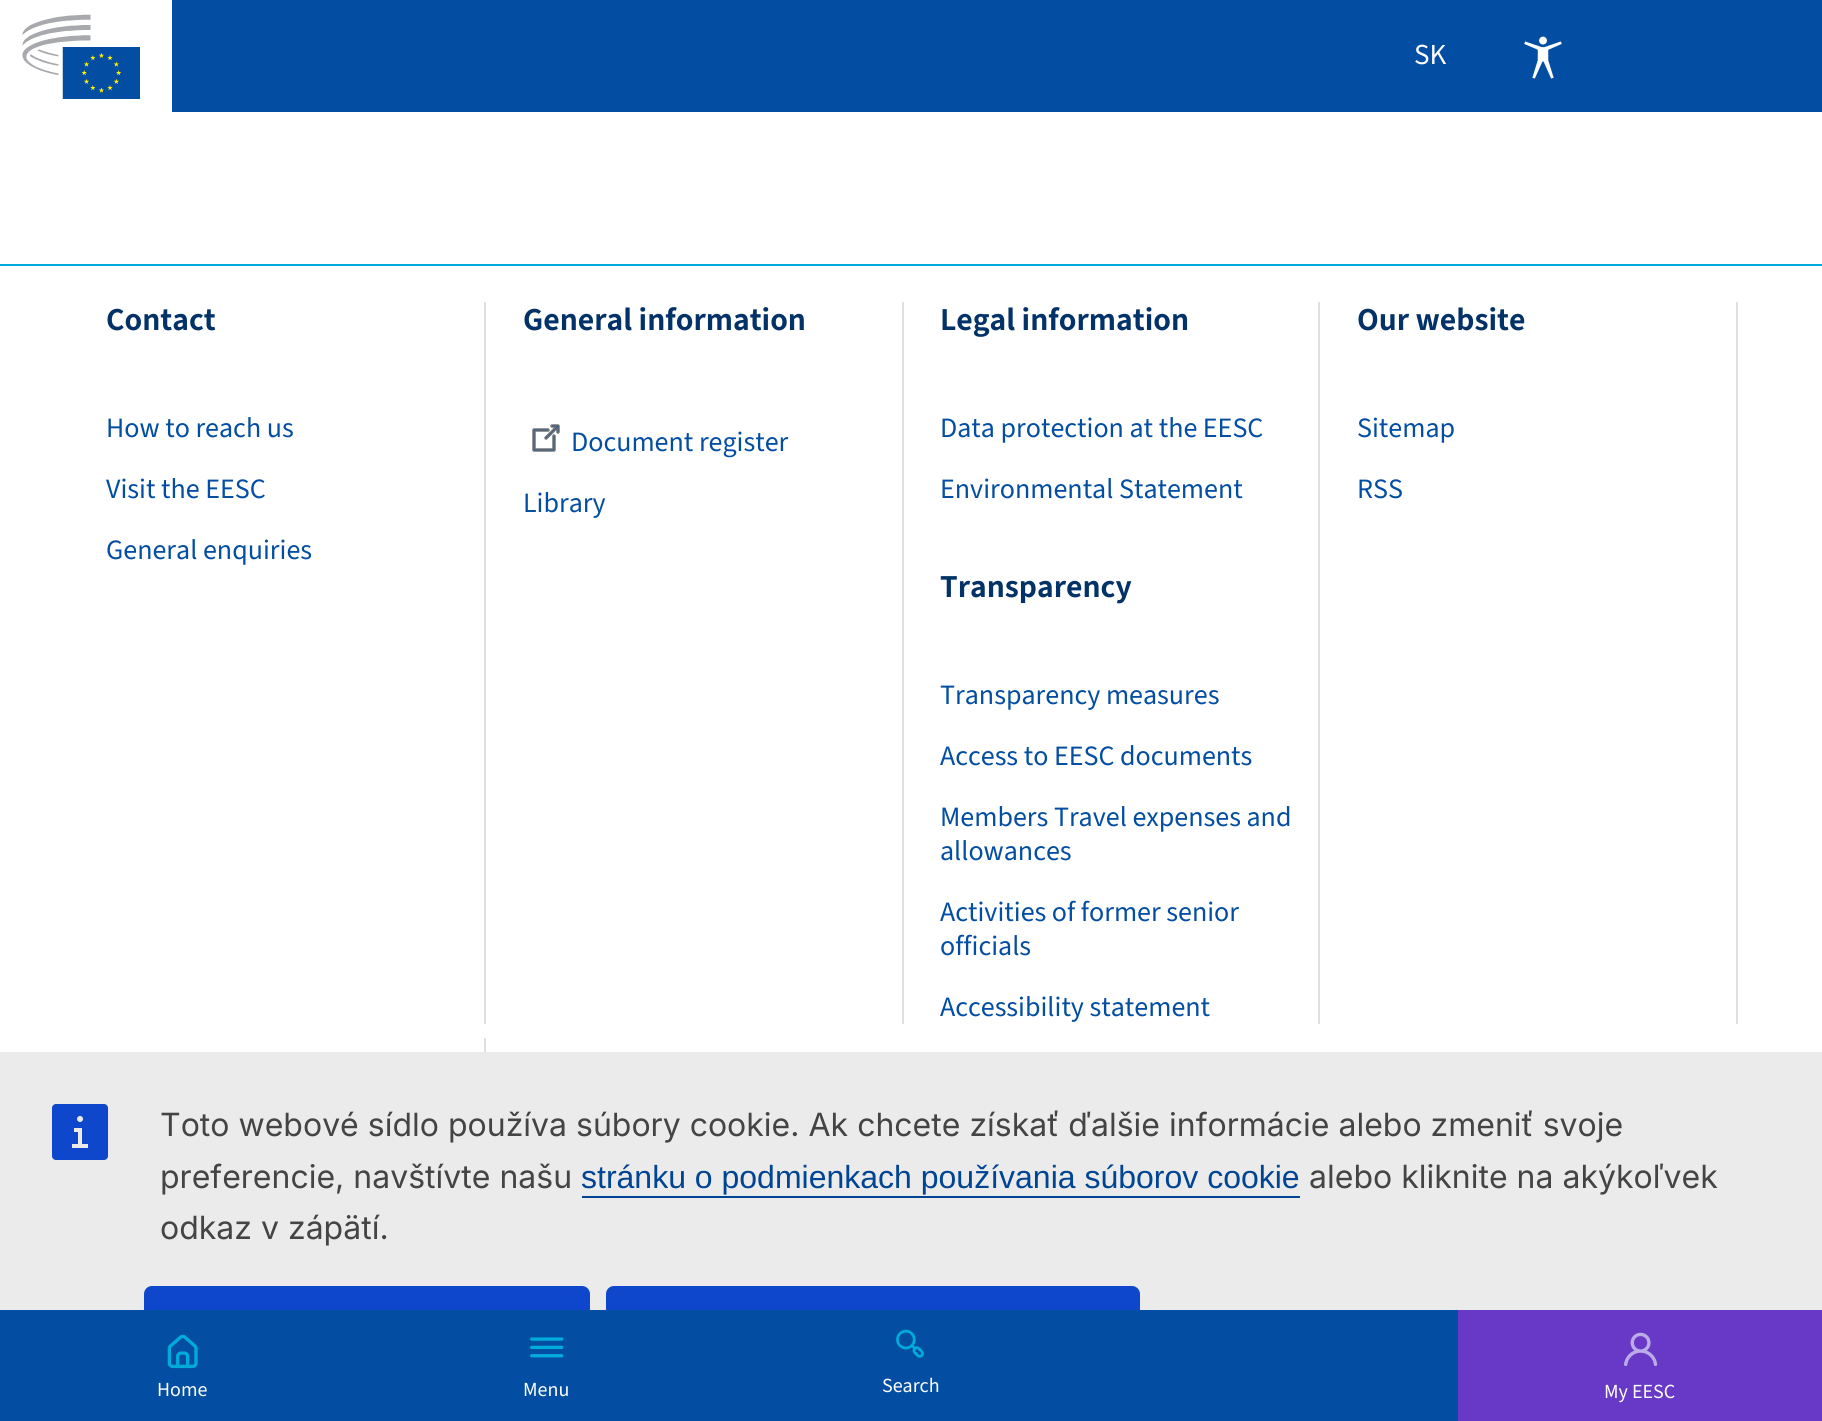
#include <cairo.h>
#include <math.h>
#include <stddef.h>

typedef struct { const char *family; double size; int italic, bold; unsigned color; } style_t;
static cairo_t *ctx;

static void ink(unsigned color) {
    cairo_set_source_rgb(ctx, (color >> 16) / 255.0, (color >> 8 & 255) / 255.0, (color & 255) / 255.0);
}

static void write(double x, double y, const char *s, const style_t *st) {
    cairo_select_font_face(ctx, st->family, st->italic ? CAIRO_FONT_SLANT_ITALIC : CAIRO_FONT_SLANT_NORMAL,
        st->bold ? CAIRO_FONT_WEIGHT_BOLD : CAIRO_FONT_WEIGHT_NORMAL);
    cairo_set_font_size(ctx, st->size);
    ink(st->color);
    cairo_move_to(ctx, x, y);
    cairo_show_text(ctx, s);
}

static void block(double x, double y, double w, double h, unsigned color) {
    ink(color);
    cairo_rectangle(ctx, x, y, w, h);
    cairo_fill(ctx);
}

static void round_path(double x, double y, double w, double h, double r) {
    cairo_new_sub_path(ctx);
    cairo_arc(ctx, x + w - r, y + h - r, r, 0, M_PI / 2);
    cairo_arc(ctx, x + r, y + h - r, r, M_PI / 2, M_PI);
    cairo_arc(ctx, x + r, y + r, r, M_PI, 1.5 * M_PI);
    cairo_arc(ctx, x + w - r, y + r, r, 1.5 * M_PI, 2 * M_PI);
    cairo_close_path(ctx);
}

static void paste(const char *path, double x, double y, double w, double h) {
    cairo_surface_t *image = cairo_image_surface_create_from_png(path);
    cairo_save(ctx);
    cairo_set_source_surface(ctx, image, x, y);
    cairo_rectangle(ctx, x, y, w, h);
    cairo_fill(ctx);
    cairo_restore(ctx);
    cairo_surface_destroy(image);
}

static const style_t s1 = {"Source Sans 3", 29, 0, 0, 0xfefefe};
static const style_t s2 = {"Source Sans 3", 20, 0, 0, 0xfefefe};
static const style_t s3 = {"Source Sans 3 SemiBold", 32, 0, 0, 0x023267};
static const style_t s4 = {"Source Sans 3", 28, 0, 0, 0x034ea2};
static const style_t s5 = {"Inter", 32, 0, 0, 0x444444};
static const style_t s6 = {"Liberation Sans", 32, 0, 0, 0x004494};

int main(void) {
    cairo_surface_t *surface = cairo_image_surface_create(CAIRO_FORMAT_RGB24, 1822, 1421);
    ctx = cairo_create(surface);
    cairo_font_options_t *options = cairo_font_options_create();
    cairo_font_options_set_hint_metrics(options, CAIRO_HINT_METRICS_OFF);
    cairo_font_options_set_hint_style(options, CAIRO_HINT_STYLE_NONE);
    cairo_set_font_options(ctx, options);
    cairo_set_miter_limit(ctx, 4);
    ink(0xffffff);
    cairo_paint(ctx);
    paste("pic1.png", 22, 14, 118, 85);
    block(172, 0, 1650, 112, 0x034ea2);
    block(0, 1052, 1822, 258, 0xebebeb);
    ink(0x0e47cb);
    round_path(144, 1286, 446, 88, 8);
    cairo_fill(ctx);
    round_path(606, 1286, 534, 88, 8);
    cairo_fill(ctx);
    block(0, 1310, 1458, 111, 0x034ea2);
    write(1414, 64, "SK", &s1);
    paste("pic2.png", 1524, 36, 38, 43);
    paste("pic3.png", 167, 1334, 31, 35);
    write(157, 1396, "Home", &s2);
    paste("pic4.png", 530, 1337, 34, 21);
    write(523, 1396, "Menu", &s2);
    paste("pic5.png", 896, 1329, 28, 29);
    write(882, 1392, "Search", &s2);
    block(1458, 1310, 364, 111, 0x6839c6);
    paste("pic6.png", 1624, 1332, 34, 35);
    write(1604, 1398, "My EESC", &s2);
    block(0, 264, 1822, 2, 0x00aadb);
    block(484, 302, 2, 722, 0xe0e0e0);
    write(106, 330, "Contact", &s3);
    write(106, 437, "How to reach us", &s4);
    write(106, 498, "Visit the EESC", &s4);
    write(106, 559, "General enquiries", &s4);
    block(902, 302, 2, 722, 0xe0e0e0);
    write(523, 330, "General information", &s3);
    paste("pic7.png", 532, 424, 28, 28);
    write(571, 451, "Document register", &s4);
    write(523, 512, "Library", &s4);
    block(1318, 302, 2, 722, 0xe0e0e0);
    write(940, 330, "Legal information", &s3);
    write(940, 437, "Data protection at the EESC", &s4);
    write(940, 498, "Environmental Statement", &s4);
    write(940, 597, "Transparency", &s3);
    write(940, 704, "Transparency measures", &s4);
    write(940, 765, "Access to EESC documents", &s4);
    write(940, 826, "Members Travel expenses and", &s4);
    write(940, 860, "allowances", &s4);
    write(940, 921, "Activities of former senior", &s4);
    write(940, 955, "officials", &s4);
    write(940, 1016, "Accessibility statement", &s4);
    block(1736, 302, 2, 722, 0xe0e0e0);
    write(1357, 330, "Our website", &s3);
    write(1357, 437, "Sitemap", &s4);
    write(1357, 498, "RSS", &s4);
    block(484, 1038, 2, 14, 0xe0e0e0);
    paste("pic8.png", 52, 1104, 56, 56);
    write(160, 1136, "Toto webové sídlo používa súbory cookie. Ak chcete získať ďalšie informácie alebo zmeniť svoje", &s5);
    write(160, 1188, "preferencie, navštívte našu", &s5);
    write(581, 1188, "stránku o podmienkach používania súborov cookie", &s6);
    block(582, 1196, 718, 2, 0x004494);
    write(1309, 1188, "alebo kliknite na akýkoľvek", &s5);
    write(160, 1239, "odkaz v zápätí.", &s5);
    cairo_surface_write_to_png(surface, "screenshot.png");
    cairo_font_options_destroy(options);
    cairo_destroy(ctx);
    cairo_surface_destroy(surface);
    return 0;
}
